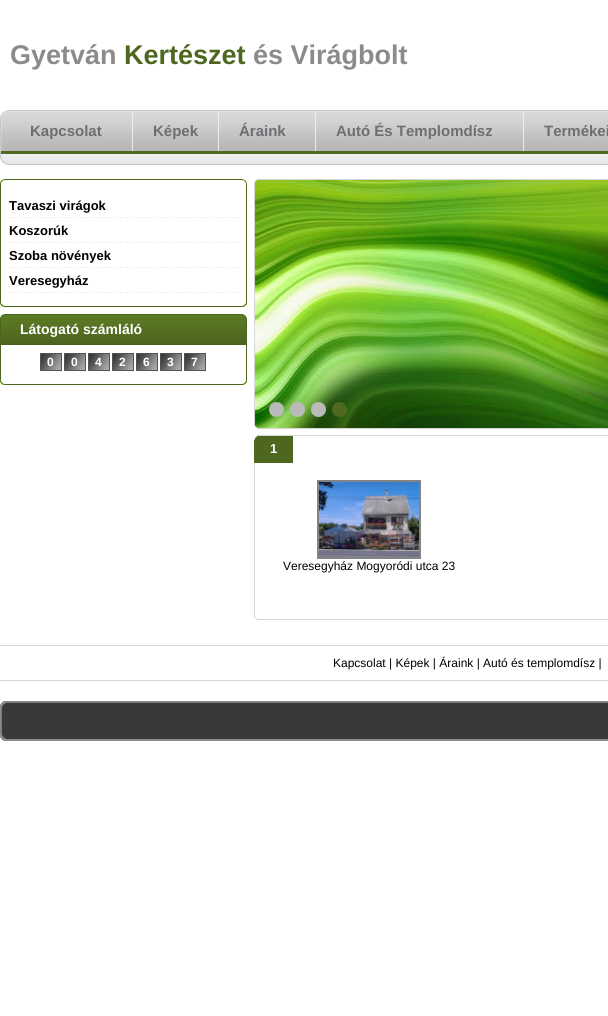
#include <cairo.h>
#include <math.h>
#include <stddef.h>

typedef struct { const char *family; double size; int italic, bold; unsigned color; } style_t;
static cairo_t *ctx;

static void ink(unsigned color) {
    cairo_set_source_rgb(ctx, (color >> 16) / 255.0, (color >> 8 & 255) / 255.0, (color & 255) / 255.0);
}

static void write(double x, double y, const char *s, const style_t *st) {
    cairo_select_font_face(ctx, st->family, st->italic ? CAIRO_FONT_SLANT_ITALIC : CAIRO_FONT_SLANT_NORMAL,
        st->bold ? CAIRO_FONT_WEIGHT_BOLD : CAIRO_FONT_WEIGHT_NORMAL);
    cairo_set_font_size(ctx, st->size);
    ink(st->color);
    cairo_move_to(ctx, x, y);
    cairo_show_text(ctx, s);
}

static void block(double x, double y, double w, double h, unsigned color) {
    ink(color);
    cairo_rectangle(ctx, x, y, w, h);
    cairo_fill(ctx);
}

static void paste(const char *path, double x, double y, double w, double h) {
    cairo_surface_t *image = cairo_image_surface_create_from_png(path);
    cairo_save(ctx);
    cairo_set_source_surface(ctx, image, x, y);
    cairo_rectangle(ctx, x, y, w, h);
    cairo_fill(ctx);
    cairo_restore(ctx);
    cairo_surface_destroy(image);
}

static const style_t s1 = {"Liberation Sans", 27, 0, 1, 0x8c8b8b};
static const style_t s2 = {"Liberation Sans", 27, 0, 1, 0x4e671f};
static const style_t s3 = {"Liberation Sans", 15, 0, 1, 0x6c6e71};
static const style_t s4 = {"Liberation Sans", 13, 0, 1, 0x000000};
static const style_t s5 = {"Liberation Sans", 14, 0, 1, 0xffffff};
static const style_t s6 = {"Liberation Sans", 12, 0, 1, 0xffffff};
static const style_t s7 = {"Liberation Sans", 13, 0, 1, 0xffffff};
static const style_t s8 = {"Liberation Sans", 12, 0, 0, 0x000000};

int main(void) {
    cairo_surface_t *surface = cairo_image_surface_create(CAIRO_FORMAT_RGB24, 608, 1016);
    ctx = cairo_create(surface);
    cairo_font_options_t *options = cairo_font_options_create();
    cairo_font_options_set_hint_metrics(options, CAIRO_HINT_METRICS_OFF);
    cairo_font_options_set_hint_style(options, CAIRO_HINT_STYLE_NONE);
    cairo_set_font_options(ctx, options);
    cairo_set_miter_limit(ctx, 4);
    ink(0xffffff);
    cairo_paint(ctx);
    write(10, 64, "Gyetván", &s1);
    write(124, 64, "Kertészet", &s2);
    write(253, 64, "és Virágbolt", &s1);
    paste("pic1.png", 0, 110, 10, 55);
    paste("pic2.png", 10, 110, 598, 55);
    block(132, 111, 1, 40, 0xececec);
    write(30, 136, "Kapcsolat", &s3);
    block(218, 111, 1, 40, 0xececec);
    write(153, 136, "Képek", &s3);
    block(315, 111, 1, 40, 0xececec);
    write(239, 136, "Áraink", &s3);
    block(523, 111, 1, 40, 0xececec);
    write(336, 136, "Autó És Templomdísz", &s3);
    write(544, 136, "Termékei", &s3);
    block(254, 463, 1, 157, 0xd6d6d6);
    paste("pic3.png", 254, 617, 354, 3);
    paste("pic4.png", 0, 179, 247, 6);
    block(246, 185, 1, 116, 0x4b641e);
    block(0, 185, 1, 116, 0x4b641e);
    cairo_new_path(ctx);
    cairo_move_to(ctx, 9, 217.5);
    cairo_line_to(ctx, 239, 217.5);
    ink(0xefefef);
    cairo_set_line_width(ctx, 1);
    cairo_set_dash(ctx, (double[]){3, 2.04}, 2, 0);
    cairo_stroke(ctx);
    write(9, 210, "Tavaszi virágok", &s4);
    cairo_new_path(ctx);
    cairo_move_to(ctx, 9, 242.5);
    cairo_line_to(ctx, 239, 242.5);
    ink(0xefefef);
    cairo_stroke(ctx);
    write(9, 235, "Koszorúk", &s4);
    cairo_new_path(ctx);
    cairo_move_to(ctx, 9, 267.5);
    cairo_line_to(ctx, 239, 267.5);
    ink(0xefefef);
    cairo_stroke(ctx);
    write(9, 260, "Szoba növények", &s4);
    cairo_new_path(ctx);
    cairo_move_to(ctx, 9, 292.5);
    cairo_line_to(ctx, 239, 292.5);
    ink(0xefefef);
    cairo_stroke(ctx);
    write(9, 285, "Veresegyház", &s4);
    paste("pic5.png", 0, 301, 247, 6);
    paste("pic6.png", 0, 314, 247, 31);
    write(20, 334, "Látogató számláló", &s5);
    block(246, 345, 1, 34, 0x4b641e);
    block(0, 345, 1, 34, 0x4b641e);
    paste("pic7.png", 40, 353, 22, 18);
    write(47, 366, "0", &s6);
    paste("pic7.png", 64, 353, 22, 18);
    write(71, 366, "0", &s6);
    paste("pic7.png", 88, 353, 22, 18);
    write(95, 366, "4", &s6);
    paste("pic7.png", 112, 353, 22, 18);
    write(119, 366, "2", &s6);
    paste("pic7.png", 136, 353, 22, 18);
    write(143, 366, "6", &s6);
    paste("pic7.png", 160, 353, 22, 18);
    write(167, 366, "3", &s6);
    paste("pic7.png", 184, 353, 22, 18);
    write(191, 366, "7", &s6);
    paste("pic5.png", 0, 379, 247, 6);
    block(254, 179, 354, 1, 0xd6d6d6);
    paste("pic9.png", 254, 180, 354, 248);
    block(254, 428, 354, 1, 0xd6d6d6);
    paste("pic8.png", 254, 179, 5, 250);
    paste("pic10.png", 269, 402, 15, 15);
    paste("pic11.png", 290, 402, 15, 15);
    paste("pic12.png", 311, 402, 15, 15);
    paste("pic13.png", 332, 402, 15, 15);
    block(254, 436, 39, 27, 0x4e671f);
    paste("pic14.png", 254, 435, 354, 5);
    write(270, 453, "1", &s7);
    cairo_rectangle(ctx, 318, 481, 102, 77);
    ink(0x838383);
    cairo_set_line_width(ctx, 2);
    cairo_set_dash(ctx, NULL, 0, 0);
    cairo_stroke(ctx);
    paste("pic15.png", 319, 482, 100, 75);
    write(283, 570, "Veresegyház Mogyoródi utca 23", &s8);
    block(0, 645, 608, 1, 0xd6d6d6);
    block(0, 680, 608, 1, 0xd6d6d6);
    write(333, 667, "Kapcsolat | Képek | Áraink | Autó és templomdísz |", &s8);
    paste("pic16.png", 0, 701, 608, 40);
    cairo_surface_write_to_png(surface, "screenshot.png");
    cairo_font_options_destroy(options);
    cairo_destroy(ctx);
    cairo_surface_destroy(surface);
    return 0;
}
